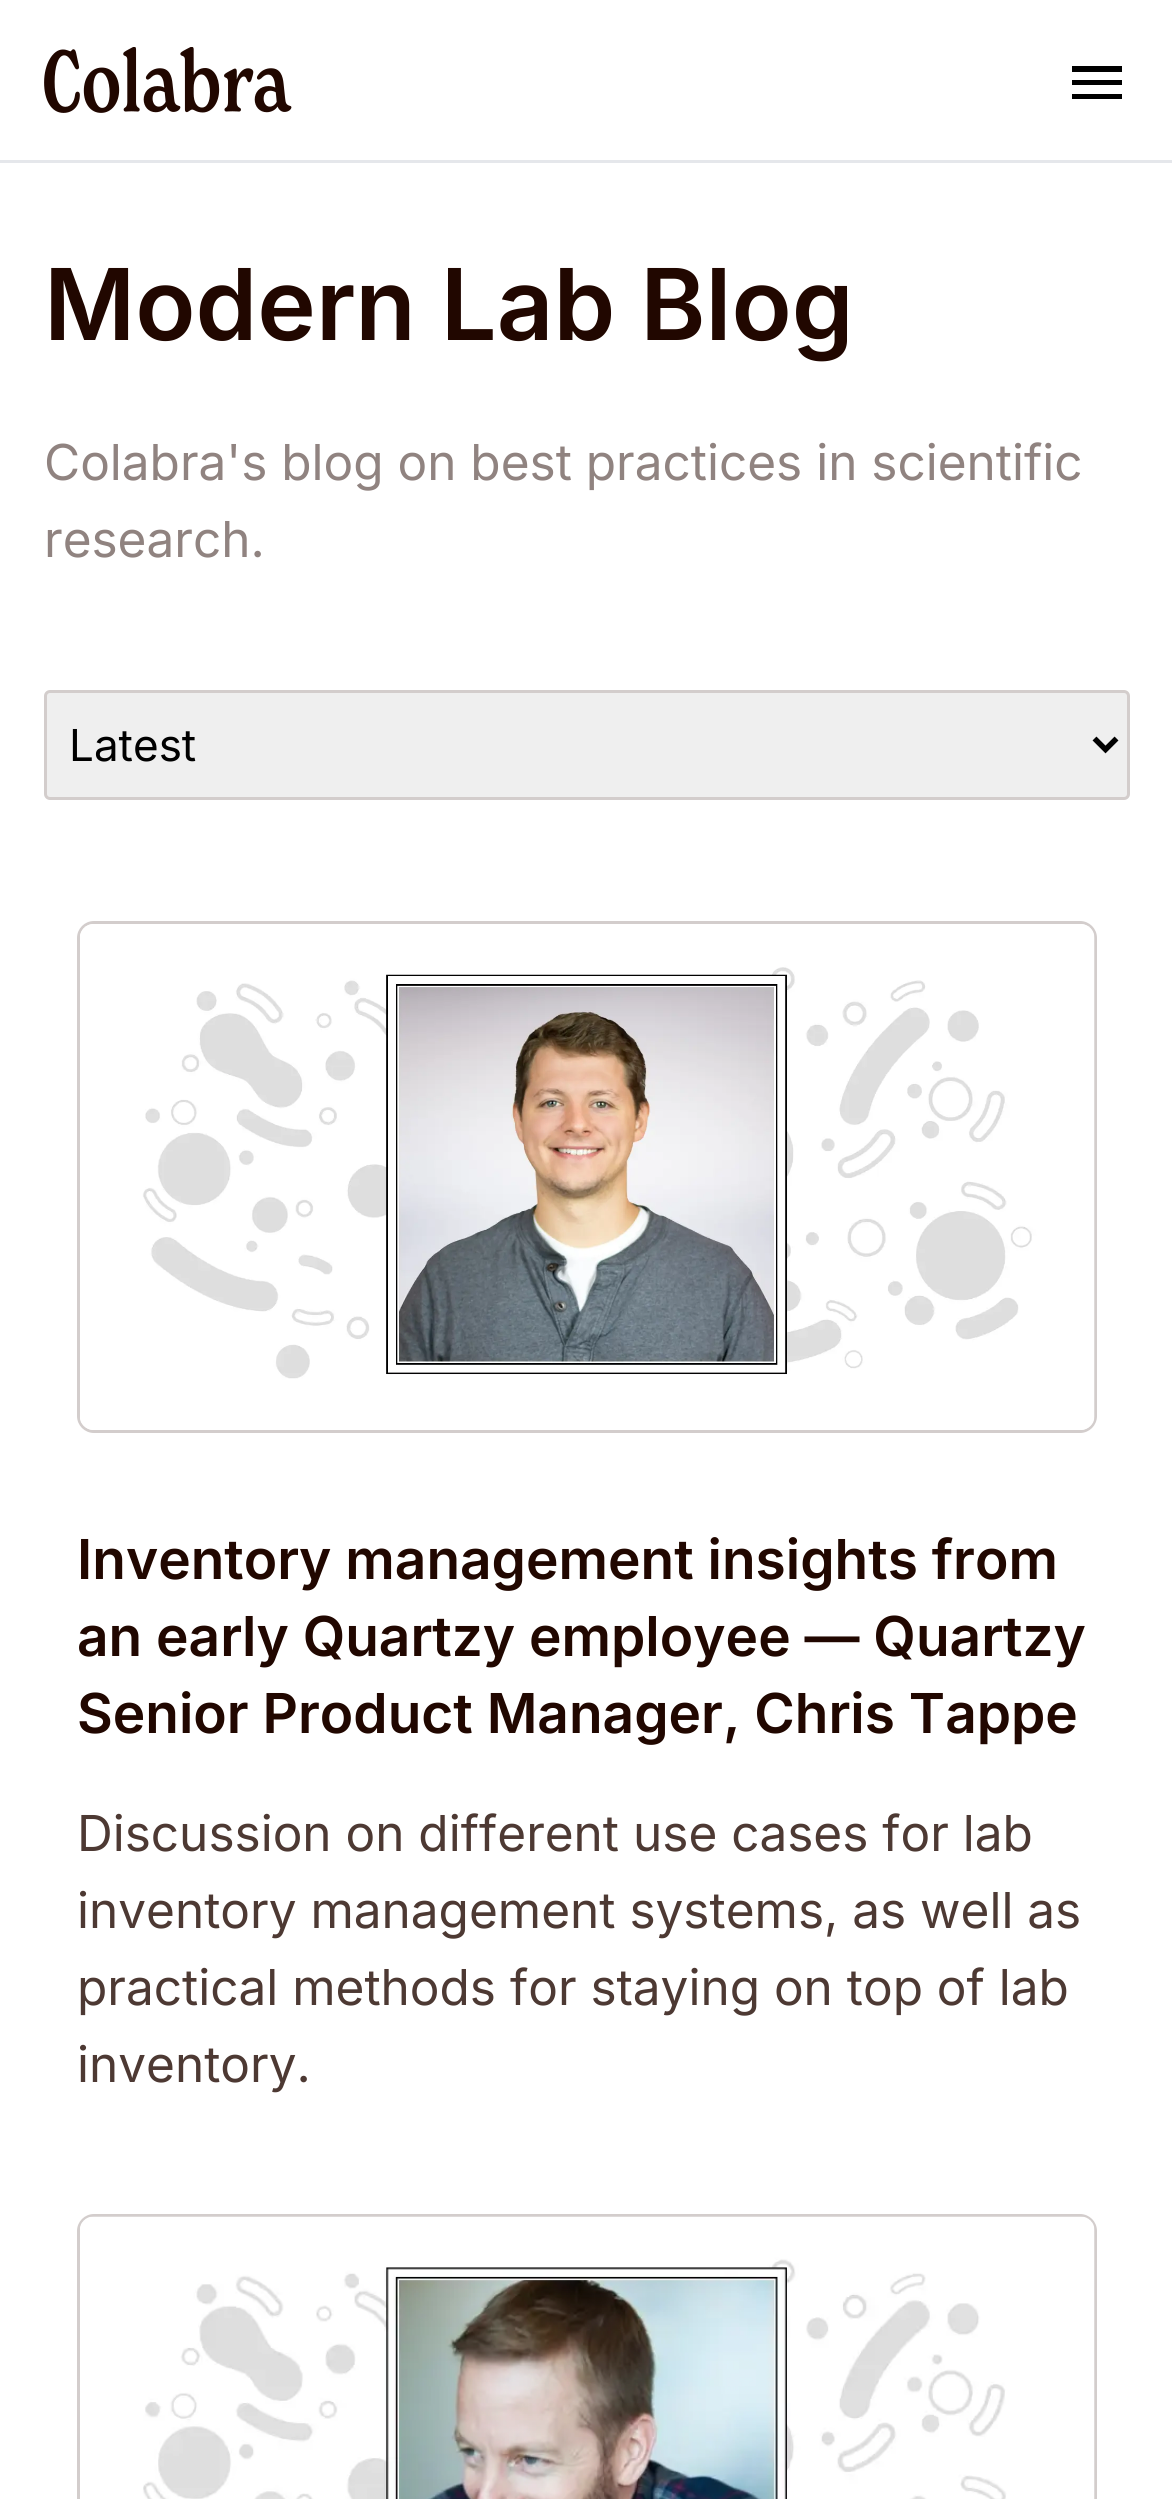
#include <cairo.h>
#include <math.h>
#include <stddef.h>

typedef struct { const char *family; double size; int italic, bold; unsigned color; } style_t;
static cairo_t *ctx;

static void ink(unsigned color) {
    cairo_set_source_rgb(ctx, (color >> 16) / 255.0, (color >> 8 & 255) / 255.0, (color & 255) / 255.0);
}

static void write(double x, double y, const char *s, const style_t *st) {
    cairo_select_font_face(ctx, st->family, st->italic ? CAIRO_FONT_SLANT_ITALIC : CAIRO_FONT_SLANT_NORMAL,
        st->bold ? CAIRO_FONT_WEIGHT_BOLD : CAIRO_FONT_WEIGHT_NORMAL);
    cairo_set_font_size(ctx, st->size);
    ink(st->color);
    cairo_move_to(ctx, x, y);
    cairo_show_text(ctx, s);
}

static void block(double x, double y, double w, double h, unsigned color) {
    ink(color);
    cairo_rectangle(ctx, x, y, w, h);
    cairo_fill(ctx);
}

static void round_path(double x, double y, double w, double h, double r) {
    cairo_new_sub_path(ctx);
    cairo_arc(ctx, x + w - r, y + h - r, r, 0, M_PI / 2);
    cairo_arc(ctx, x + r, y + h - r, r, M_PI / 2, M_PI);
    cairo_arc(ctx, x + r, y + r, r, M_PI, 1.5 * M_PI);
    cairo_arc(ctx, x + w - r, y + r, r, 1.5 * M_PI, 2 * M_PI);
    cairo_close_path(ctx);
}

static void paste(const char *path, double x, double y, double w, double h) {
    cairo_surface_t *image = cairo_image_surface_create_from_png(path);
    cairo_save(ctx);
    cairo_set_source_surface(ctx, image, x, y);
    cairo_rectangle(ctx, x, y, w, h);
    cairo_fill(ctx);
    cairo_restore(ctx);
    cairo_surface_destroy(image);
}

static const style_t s1 = {"Inter SemiBold", 99, 0, 0, 0x210700};
static const style_t s2 = {"Inter", 49.5, 0, 0, 0x908380};
static const style_t s3 = {"Inter", 44, 0, 0, 0x000000};
static const style_t s4 = {"Inter SemiBold", 55, 0, 0, 0x210700};
static const style_t s5 = {"Inter", 49.5, 0, 0, 0x4d3933};

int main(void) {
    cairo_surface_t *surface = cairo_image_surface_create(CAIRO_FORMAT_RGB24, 1172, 2499);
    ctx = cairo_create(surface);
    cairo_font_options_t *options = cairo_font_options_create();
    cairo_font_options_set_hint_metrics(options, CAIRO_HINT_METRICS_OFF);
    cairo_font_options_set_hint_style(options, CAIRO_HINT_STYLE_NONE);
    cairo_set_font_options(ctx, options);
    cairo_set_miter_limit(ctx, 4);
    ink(0xffffff);
    cairo_paint(ctx);
    block(0, 160, 1172, 3, 0xe5e7eb);
    paste("pic1.png", 44, 47, 248, 66);
    ink(0x000000);
    cairo_new_path(ctx);
    cairo_move_to(ctx, 1072, 66);
    cairo_line_to(ctx, 1122, 66);
    cairo_line_to(ctx, 1122, 72);
    cairo_line_to(ctx, 1072, 72);
    cairo_line_to(ctx, 1072, 66);
    cairo_move_to(ctx, 1072, 80);
    cairo_line_to(ctx, 1122, 80);
    cairo_line_to(ctx, 1122, 85);
    cairo_line_to(ctx, 1072, 85);
    cairo_line_to(ctx, 1072, 80);
    cairo_move_to(ctx, 1072, 94);
    cairo_line_to(ctx, 1122, 94);
    cairo_line_to(ctx, 1122, 99);
    cairo_line_to(ctx, 1072, 99);
    cairo_close_path(ctx);
    cairo_fill(ctx);
    write(44, 340, "Modern Lab Blog", &s1);
    write(44, 480, "Colabra's blog on best practices in scientific", &s2);
    write(44, 557, "research.", &s2);
    ink(0xefefef);
    round_path(45.5, 691.5, 1083, 107, 4.5);
    cairo_fill_preserve(ctx);
    ink(0xd3cdcc);
    cairo_set_line_width(ctx, 3);
    cairo_stroke(ctx);
    cairo_new_path(ctx);
    cairo_move_to(ctx, 1094.5, 738.5);
    cairo_line_to(ctx, 1105.5, 749.5);
    cairo_line_to(ctx, 1116.5, 738.5);
    ink(0x000000);
    cairo_set_line_width(ctx, 5.5);
    cairo_stroke(ctx);
    write(69, 761, "Latest", &s3);
    round_path(78.5, 922.5, 1017, 509, 15.5);
    ink(0xd3cdcc);
    cairo_set_line_width(ctx, 3);
    cairo_stroke(ctx);
    paste("pic2.png", 80, 924, 1015, 506);
    write(77, 1579, "Inventory management insights from", &s4);
    write(77, 1656, "an early Quartzy employee –– Quartzy", &s4);
    write(77, 1733, "Senior Product Manager, Chris Tappe", &s4);
    write(77, 1851, "Discussion on different use cases for lab", &s5);
    write(77, 1928, "inventory management systems, as well as", &s5);
    write(77, 2005, "practical methods for staying on top of lab", &s5);
    write(77, 2082, "inventory.", &s5);
    round_path(78.5, 2215.5, 1017, 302, 15.5);
    ink(0xd3cdcc);
    cairo_stroke(ctx);
    paste("pic3.png", 80, 2216, 1015, 283);
    cairo_surface_write_to_png(surface, "screenshot.png");
    cairo_font_options_destroy(options);
    cairo_destroy(ctx);
    cairo_surface_destroy(surface);
    return 0;
}
